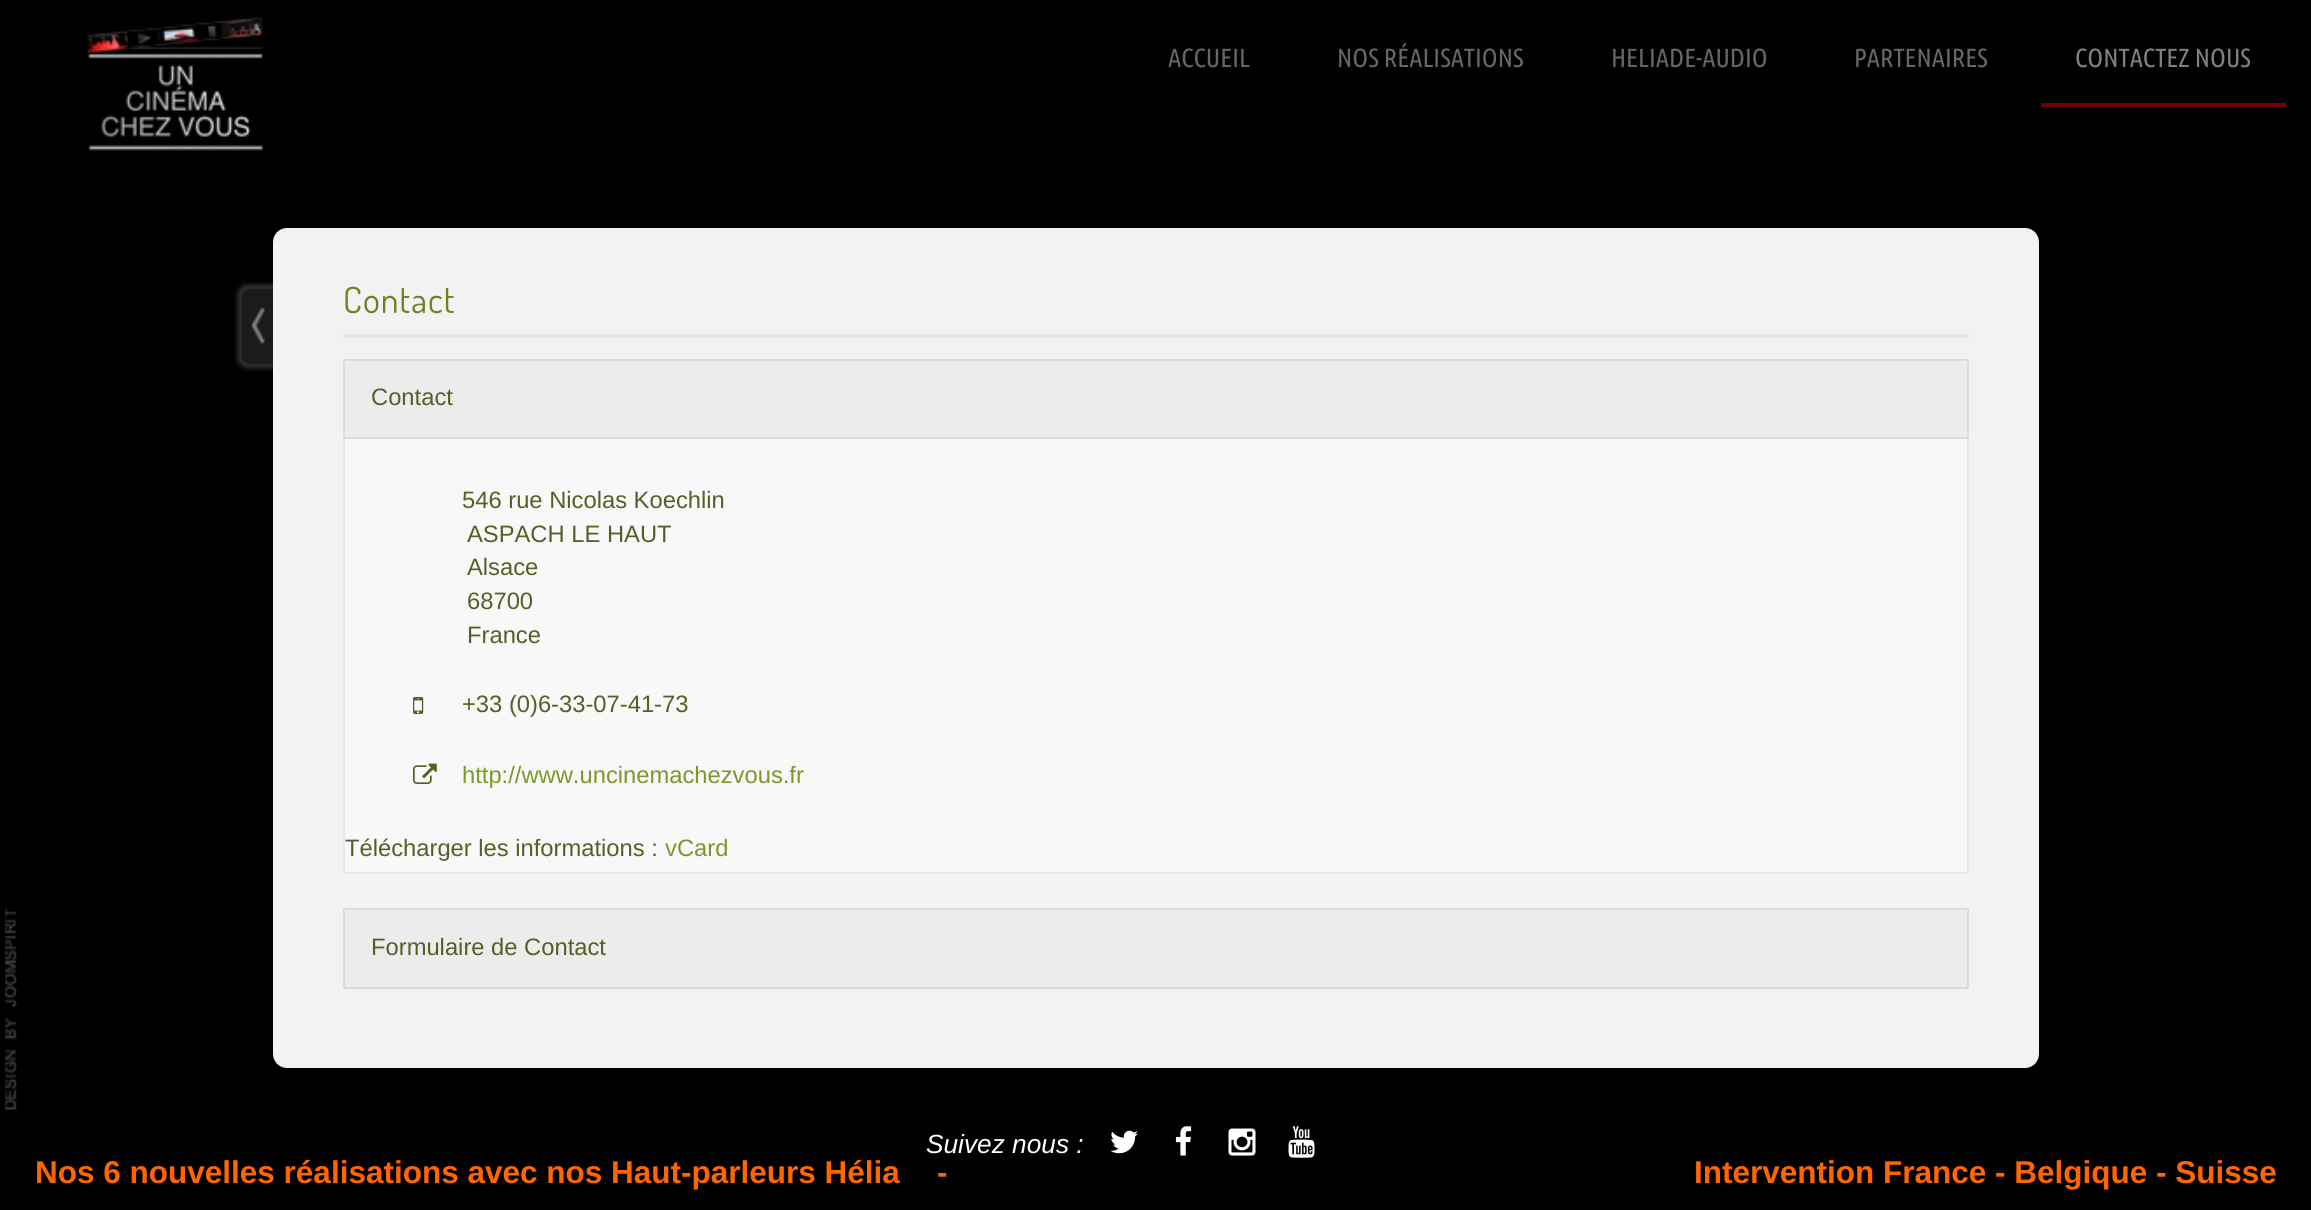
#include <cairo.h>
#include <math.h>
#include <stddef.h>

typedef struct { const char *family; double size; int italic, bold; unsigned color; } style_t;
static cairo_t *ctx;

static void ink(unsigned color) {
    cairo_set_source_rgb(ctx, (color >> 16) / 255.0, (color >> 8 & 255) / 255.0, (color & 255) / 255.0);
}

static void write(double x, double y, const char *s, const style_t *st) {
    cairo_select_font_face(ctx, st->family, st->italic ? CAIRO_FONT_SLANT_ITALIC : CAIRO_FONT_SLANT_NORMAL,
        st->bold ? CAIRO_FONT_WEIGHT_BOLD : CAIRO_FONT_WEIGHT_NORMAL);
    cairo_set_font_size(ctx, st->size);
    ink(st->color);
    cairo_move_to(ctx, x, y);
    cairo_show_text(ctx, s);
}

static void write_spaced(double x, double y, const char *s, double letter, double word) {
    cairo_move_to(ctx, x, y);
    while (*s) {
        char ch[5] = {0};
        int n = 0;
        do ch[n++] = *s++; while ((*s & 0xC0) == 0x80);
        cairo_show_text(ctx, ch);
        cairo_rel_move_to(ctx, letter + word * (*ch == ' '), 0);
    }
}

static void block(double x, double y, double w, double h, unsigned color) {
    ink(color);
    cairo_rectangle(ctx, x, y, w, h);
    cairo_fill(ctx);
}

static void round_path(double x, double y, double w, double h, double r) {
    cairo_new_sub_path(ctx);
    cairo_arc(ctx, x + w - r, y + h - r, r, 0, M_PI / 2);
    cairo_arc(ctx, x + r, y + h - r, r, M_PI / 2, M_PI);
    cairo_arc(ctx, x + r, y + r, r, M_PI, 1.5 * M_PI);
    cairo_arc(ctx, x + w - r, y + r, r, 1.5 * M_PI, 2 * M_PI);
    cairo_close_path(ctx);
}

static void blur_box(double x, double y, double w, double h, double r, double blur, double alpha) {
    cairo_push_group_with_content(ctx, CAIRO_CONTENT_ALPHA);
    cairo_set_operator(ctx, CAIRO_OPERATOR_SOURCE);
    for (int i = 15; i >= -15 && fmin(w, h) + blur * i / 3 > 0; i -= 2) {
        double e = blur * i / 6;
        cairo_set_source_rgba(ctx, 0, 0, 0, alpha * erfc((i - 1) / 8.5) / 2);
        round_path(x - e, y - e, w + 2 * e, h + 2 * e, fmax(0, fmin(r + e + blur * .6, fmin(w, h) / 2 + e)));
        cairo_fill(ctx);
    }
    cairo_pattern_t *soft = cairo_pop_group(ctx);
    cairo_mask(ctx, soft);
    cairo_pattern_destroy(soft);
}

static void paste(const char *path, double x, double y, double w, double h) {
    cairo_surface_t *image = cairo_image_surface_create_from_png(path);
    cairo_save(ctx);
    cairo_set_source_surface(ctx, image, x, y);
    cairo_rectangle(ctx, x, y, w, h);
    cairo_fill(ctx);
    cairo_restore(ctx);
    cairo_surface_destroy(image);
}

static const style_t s1 = {"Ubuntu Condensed", 26.25, 0, 0, 0x666666};
static const style_t s2 = {"Ubuntu Condensed", 26.25, 0, 0, 0x808080};
static const style_t s3 = {"Liberation Sans", 23.75, 0, 0, 0x565f26};
static const style_t s4 = {"Liberation Sans", 23.75, 0, 0, 0x7d9729};
static const style_t s5 = {"Liberation Sans", 31.5, 0, 1, 0xff6600};
static const style_t s6 = {"Liberation Sans", 26.25, 1, 0, 0xffffff};

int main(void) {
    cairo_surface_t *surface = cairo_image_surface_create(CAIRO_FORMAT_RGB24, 2311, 1210);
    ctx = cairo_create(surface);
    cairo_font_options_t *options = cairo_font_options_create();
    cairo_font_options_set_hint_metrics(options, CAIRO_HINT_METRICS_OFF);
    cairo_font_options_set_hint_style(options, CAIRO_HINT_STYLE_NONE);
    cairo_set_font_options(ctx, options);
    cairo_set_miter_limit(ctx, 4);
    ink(0x000000);
    cairo_paint(ctx);
    write(1168, 67, "ACCUEIL", &s1);
    write(1337, 67, "NOS RÉALISATIONS", &s1);
    write(1611, 67, "HELIADE-AUDIO", &s1);
    write(1854, 67, "PARTENAIRES", &s1);
    block(2041, 103, 245, 4, 0x730206);
    write(2075, 67, "CONTACTEZ NOUS", &s2);
    paste("pic1.png", 87, 17, 176, 134);
    ink(0xf2f2f2);
    round_path(273, 228, 1766, 840, 14);
    cairo_fill(ctx);
    paste("pic2.png", 235, 282, 38, 89);
    block(343, 334, 1626, 4, 0xe6e6e6);
    cairo_select_font_face(ctx, "Dosis", CAIRO_FONT_SLANT_NORMAL, CAIRO_FONT_WEIGHT_NORMAL);
    cairo_set_font_size(ctx, 36);
    ink(0x6c8223);
    write_spaced(343, 313, "Contact", 1, 0);
    block(345, 439, 1622, 433, 0xf8f8f8);
    ink(0xececec);
    cairo_rectangle(ctx, 344, 360, 1624, 78);
    cairo_fill_preserve(ctx);
    ink(0xdbdbdb);
    cairo_stroke(ctx);
    write(371, 405, "Contact", &s3);
    block(1967, 439, 2, 434, 0xe8e8e8);
    block(343, 872, 1626, 2, 0xe8e8e8);
    block(343, 439, 2, 434, 0xe8e8e8);
    write(462, 508, "546 rue Nicolas Koechlin", &s3);
    write(467, 542, "ASPACH LE HAUT", &s3);
    write(467, 575, "Alsace", &s3);
    write(467, 609, "68700", &s3);
    write(467, 643, "France", &s3);
    paste("pic3.png", 413, 697, 11, 17);
    write(462, 712, "+33 (0)6-33-07-41-73", &s3);
    paste("pic4.png", 413, 763, 24, 21);
    write(462, 783, "http://www.uncinemachezvous.fr", &s4);
    write(345, 856, "Télécharger les informations :", &s3);
    write(665, 856, "vCard", &s4);
    ink(0xececec);
    cairo_rectangle(ctx, 344, 909, 1624, 79);
    cairo_fill_preserve(ctx);
    ink(0xdbdbdb);
    cairo_stroke(ctx);
    write(371, 955, "Formulaire de Contact", &s3);
    paste("pic5.png", 5, 908, 13, 202);
    ink(0x000000);
    blur_box(898, 1106, 516, 63, 31.5, 4.5, 0.5);
    write(35, 1183, "Nos 6 nouvelles réalisations avec nos Haut-parleurs Hélia", &s5);
    write(937, 1183, "-", &s5);
    ink(0x000000);
    round_path(898, 1110, 516, 63, 31.5);
    cairo_fill(ctx);
    write(926, 1153, "Suivez nous :", &s6);
    paste("pic6.png", 1110, 1130, 28, 24);
    paste("pic7.png", 1175, 1126, 17, 30);
    paste("pic8.png", 1228, 1128, 28, 28);
    paste("pic9.png", 1288, 1126, 27, 32);
    write(1694, 1183, "Intervention France - Belgique - Suisse", &s5);
    cairo_surface_write_to_png(surface, "screenshot.png");
    cairo_font_options_destroy(options);
    cairo_destroy(ctx);
    cairo_surface_destroy(surface);
    return 0;
}
